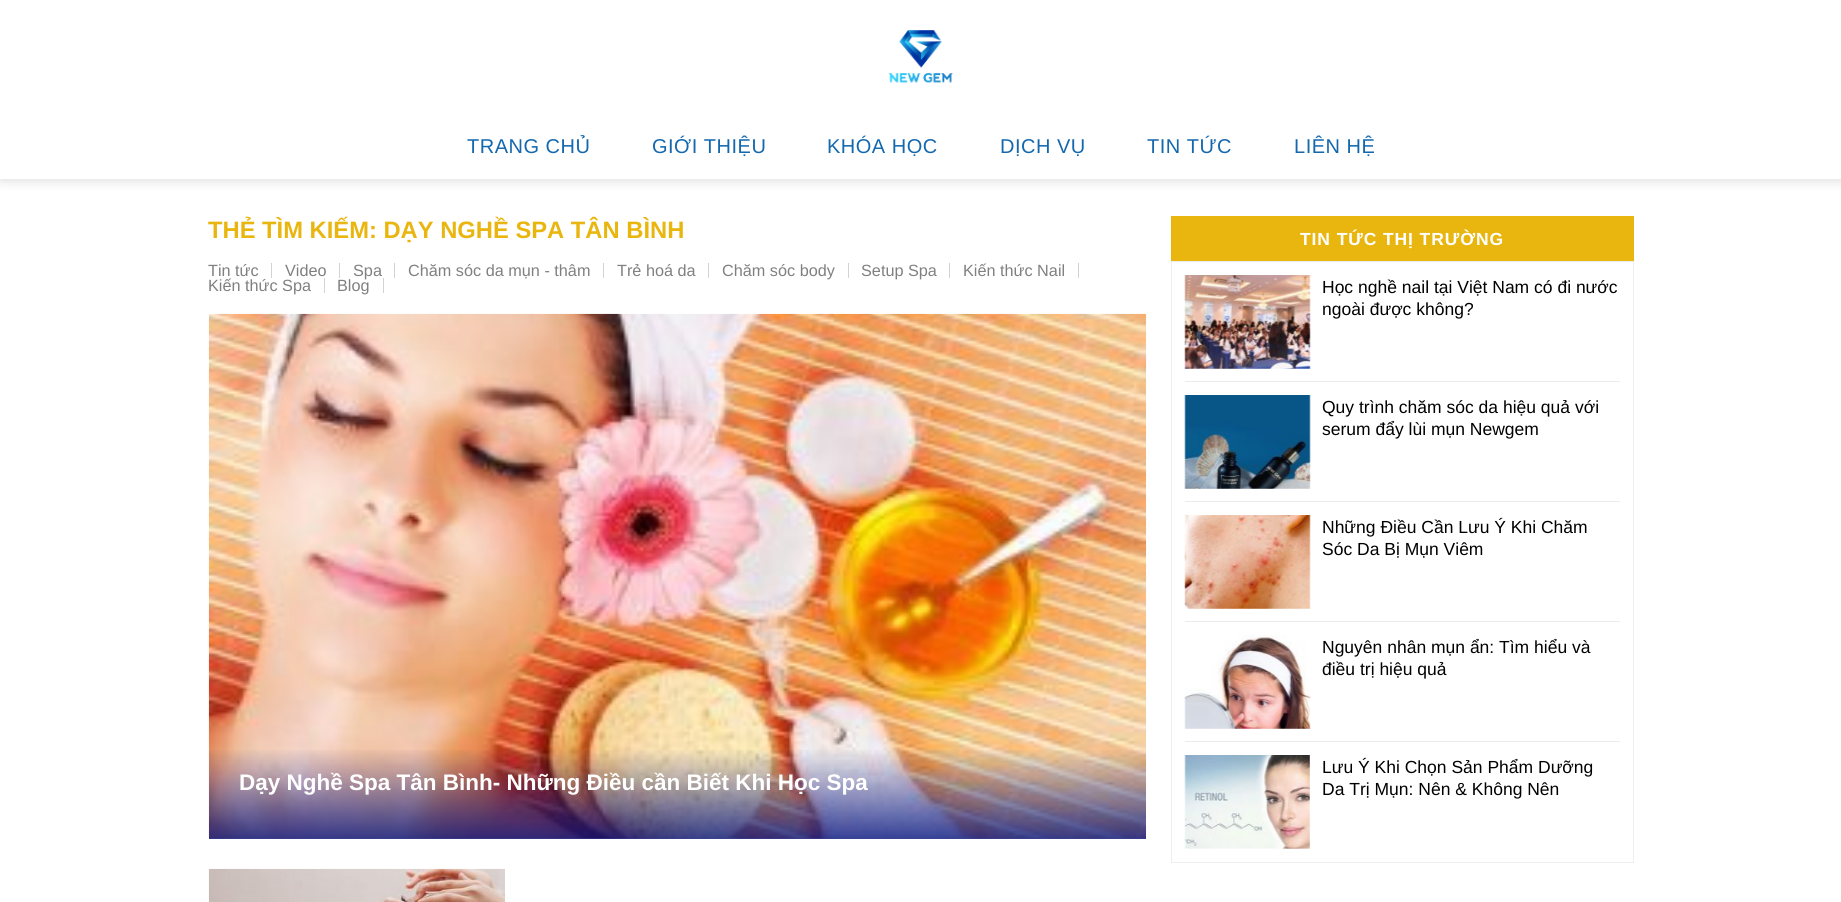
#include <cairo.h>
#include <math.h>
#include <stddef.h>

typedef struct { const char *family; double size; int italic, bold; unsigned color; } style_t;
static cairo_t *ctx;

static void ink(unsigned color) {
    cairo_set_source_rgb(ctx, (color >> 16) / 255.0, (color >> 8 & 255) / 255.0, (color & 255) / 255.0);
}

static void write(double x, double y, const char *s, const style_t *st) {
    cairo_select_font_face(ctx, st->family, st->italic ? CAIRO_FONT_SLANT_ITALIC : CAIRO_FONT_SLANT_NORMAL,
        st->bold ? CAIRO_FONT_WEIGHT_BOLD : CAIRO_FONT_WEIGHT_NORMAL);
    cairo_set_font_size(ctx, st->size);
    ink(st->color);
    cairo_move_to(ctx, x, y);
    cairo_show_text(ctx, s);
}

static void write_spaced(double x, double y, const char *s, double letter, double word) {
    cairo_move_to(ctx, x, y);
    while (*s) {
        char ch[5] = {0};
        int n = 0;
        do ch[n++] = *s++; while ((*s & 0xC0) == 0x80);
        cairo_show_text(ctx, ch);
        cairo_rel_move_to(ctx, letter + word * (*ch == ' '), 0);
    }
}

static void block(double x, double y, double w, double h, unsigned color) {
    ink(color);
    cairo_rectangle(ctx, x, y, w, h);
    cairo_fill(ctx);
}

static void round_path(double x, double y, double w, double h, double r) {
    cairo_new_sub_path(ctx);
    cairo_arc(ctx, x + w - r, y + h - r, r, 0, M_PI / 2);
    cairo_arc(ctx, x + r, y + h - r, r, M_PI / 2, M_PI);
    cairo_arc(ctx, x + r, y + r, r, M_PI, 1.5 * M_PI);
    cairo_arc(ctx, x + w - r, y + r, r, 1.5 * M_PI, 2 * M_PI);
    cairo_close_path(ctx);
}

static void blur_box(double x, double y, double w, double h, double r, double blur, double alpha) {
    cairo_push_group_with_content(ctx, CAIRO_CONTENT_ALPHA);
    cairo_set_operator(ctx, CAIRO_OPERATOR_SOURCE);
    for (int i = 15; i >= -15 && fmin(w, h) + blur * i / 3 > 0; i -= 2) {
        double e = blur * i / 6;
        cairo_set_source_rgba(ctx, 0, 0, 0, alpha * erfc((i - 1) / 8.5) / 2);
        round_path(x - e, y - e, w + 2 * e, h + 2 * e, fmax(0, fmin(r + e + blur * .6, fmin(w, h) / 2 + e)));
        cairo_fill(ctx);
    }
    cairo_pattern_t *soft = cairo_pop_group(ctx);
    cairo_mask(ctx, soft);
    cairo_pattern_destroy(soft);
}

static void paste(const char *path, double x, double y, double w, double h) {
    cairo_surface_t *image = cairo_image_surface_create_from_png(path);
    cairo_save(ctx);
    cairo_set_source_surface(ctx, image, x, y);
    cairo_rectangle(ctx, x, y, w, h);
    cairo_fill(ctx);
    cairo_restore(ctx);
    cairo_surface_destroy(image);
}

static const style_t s1 = {"Liberation Sans", 23.75, 0, 1, 0xe9b610};
static const style_t s2 = {"Liberation Sans", 16.25, 0, 0, 0x808080};
static const style_t s3 = {"Liberation Sans", 22.5, 0, 1, 0xffffff};
static const style_t s4 = {"Liberation Sans", 17.5, 0, 0, 0x000000};

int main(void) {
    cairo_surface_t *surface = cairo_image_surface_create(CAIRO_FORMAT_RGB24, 1841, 902);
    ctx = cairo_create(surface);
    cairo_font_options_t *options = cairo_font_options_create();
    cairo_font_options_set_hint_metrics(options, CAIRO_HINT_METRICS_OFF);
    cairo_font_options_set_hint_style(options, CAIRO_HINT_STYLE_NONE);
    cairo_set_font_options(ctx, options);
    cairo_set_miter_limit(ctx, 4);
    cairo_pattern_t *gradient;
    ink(0xffffff);
    cairo_paint(ctx);
    cairo_save(ctx);
    cairo_set_fill_rule(ctx, CAIRO_FILL_RULE_EVEN_ODD);
    cairo_new_path(ctx);
    cairo_move_to(ctx, 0, 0);
    cairo_line_to(ctx, 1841, 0);
    cairo_line_to(ctx, 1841, 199);
    cairo_line_to(ctx, 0, 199);
    cairo_close_path(ctx);
    cairo_move_to(ctx, 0, 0);
    cairo_line_to(ctx, 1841, 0);
    cairo_line_to(ctx, 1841, 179);
    cairo_line_to(ctx, 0, 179);
    cairo_close_path(ctx);
    cairo_clip(ctx);
    ink(0x000000);
    blur_box(1, 1, 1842, 179, 0, 6, 0.15);
    cairo_restore(ctx);
    paste("pic1.png", 888, 30, 65, 53);
    cairo_select_font_face(ctx, "Liberation Sans", CAIRO_FONT_SLANT_NORMAL, CAIRO_FONT_WEIGHT_NORMAL);
    cairo_set_font_size(ctx, 20);
    ink(0x1368ae);
    write_spaced(467, 153, "TRANG CHỦ", 0.5, 0);
    write_spaced(652, 153, "GIỚI THIỆU", 0.5, 0);
    write_spaced(827, 153, "KHÓA HỌC", 0.5, 0);
    write_spaced(1000, 153, "DỊCH VỤ", 0.5, 0);
    write_spaced(1147, 153, "TIN TỨC", 0.5, 0);
    write_spaced(1294, 153, "LIÊN HỆ", 0.5, 0);
    cairo_set_source_rgba(ctx, 1, 1, 1, 0.9);
    cairo_rectangle(ctx, 1, 178, 1840, 1);
    cairo_fill(ctx);
    write(208, 238, "THẺ TÌM KIẾM: DẠY NGHỀ SPA TÂN BÌNH", &s1);
    block(271, 263, 1, 15, 0xd3d3d3);
    write(208, 276, "Tin tức", &s2);
    block(339, 263, 1, 15, 0xd3d3d3);
    write(285, 276, "Video", &s2);
    block(394, 263, 1, 15, 0xd3d3d3);
    write(353, 276, "Spa", &s2);
    block(603, 263, 1, 15, 0xd3d3d3);
    write(408, 276, "Chăm sóc da mụn - thâm", &s2);
    block(708, 263, 1, 15, 0xd3d3d3);
    write(617, 276, "Trẻ hoá da", &s2);
    block(848, 263, 1, 15, 0xd3d3d3);
    write(722, 276, "Chăm sóc body", &s2);
    block(949, 263, 1, 15, 0xd3d3d3);
    write(861, 276, "Setup Spa", &s2);
    block(1078, 263, 1, 15, 0xd3d3d3);
    write(963, 276, "Kiến thức Nail", &s2);
    block(324, 278, 1, 15, 0xd3d3d3);
    write(208, 291, "Kiến thức Spa", &s2);
    block(383, 278, 1, 15, 0xd3d3d3);
    write(337, 291, "Blog", &s2);
    paste("pic2.png", 208, 313, 939, 526);
    gradient = cairo_pattern_create_linear(678, 748, 678, 839);
    cairo_pattern_add_color_stop_rgba(gradient, 0, 0.016, 0.078, 0.502, 0);
    cairo_pattern_add_color_stop_rgba(gradient, 1, 0.016, 0.078, 0.502, 0.79);
    cairo_set_source(ctx, gradient);
    cairo_pattern_destroy(gradient);
    cairo_rectangle(ctx, 209, 750, 937, 89);
    cairo_fill(ctx);
    write(239, 790, "Dạy Nghề Spa Tân Bình- Những Điều cần Biết Khi Học Spa", &s3);
    paste("pic3.png", 208, 868, 297, 34);
    block(1171, 216, 463, 45, 0xe9b610);
    cairo_set_font_size(ctx, 17.5);
    ink(0xffffff);
    write_spaced(1300, 245, "TIN TỨC THỊ TRƯỜNG", 0.9, 0);
    cairo_rectangle(ctx, 1171.5, 261.5, 462, 601);
    ink(0xeeeeee);
    cairo_set_line_width(ctx, 1);
    cairo_stroke(ctx);
    paste("pic4.png", 1184, 275, 127, 94);
    write(1322, 293, "Học nghề nail tại Việt Nam có đi nước", &s4);
    write(1322, 315, "ngoài được không?", &s4);
    block(1185, 381, 435, 1, 0xececec);
    paste("pic5.png", 1184, 395, 127, 94);
    write(1322, 413, "Quy trình chăm sóc da hiệu quả với", &s4);
    write(1322, 435, "serum đẩy lùi mụn Newgem", &s4);
    block(1185, 501, 435, 1, 0xececec);
    paste("pic6.png", 1184, 515, 127, 94);
    write(1322, 533, "Những Điều Cần Lưu Ý Khi Chăm", &s4);
    write(1322, 555, "Sóc Da Bị Mụn Viêm", &s4);
    block(1185, 621, 435, 1, 0xececec);
    paste("pic7.png", 1184, 635, 127, 94);
    write(1322, 653, "Nguyên nhân mụn ẩn: Tìm hiểu và", &s4);
    write(1322, 675, "điều trị hiệu quả", &s4);
    block(1185, 741, 435, 1, 0xececec);
    paste("pic8.png", 1184, 755, 126, 94);
    write(1322, 773, "Lưu Ý Khi Chọn Sản Phẩm Dưỡng", &s4);
    write(1322, 795, "Da Trị Mụn: Nên & Không Nên", &s4);
    cairo_surface_write_to_png(surface, "screenshot.png");
    cairo_font_options_destroy(options);
    cairo_destroy(ctx);
    cairo_surface_destroy(surface);
    return 0;
}
